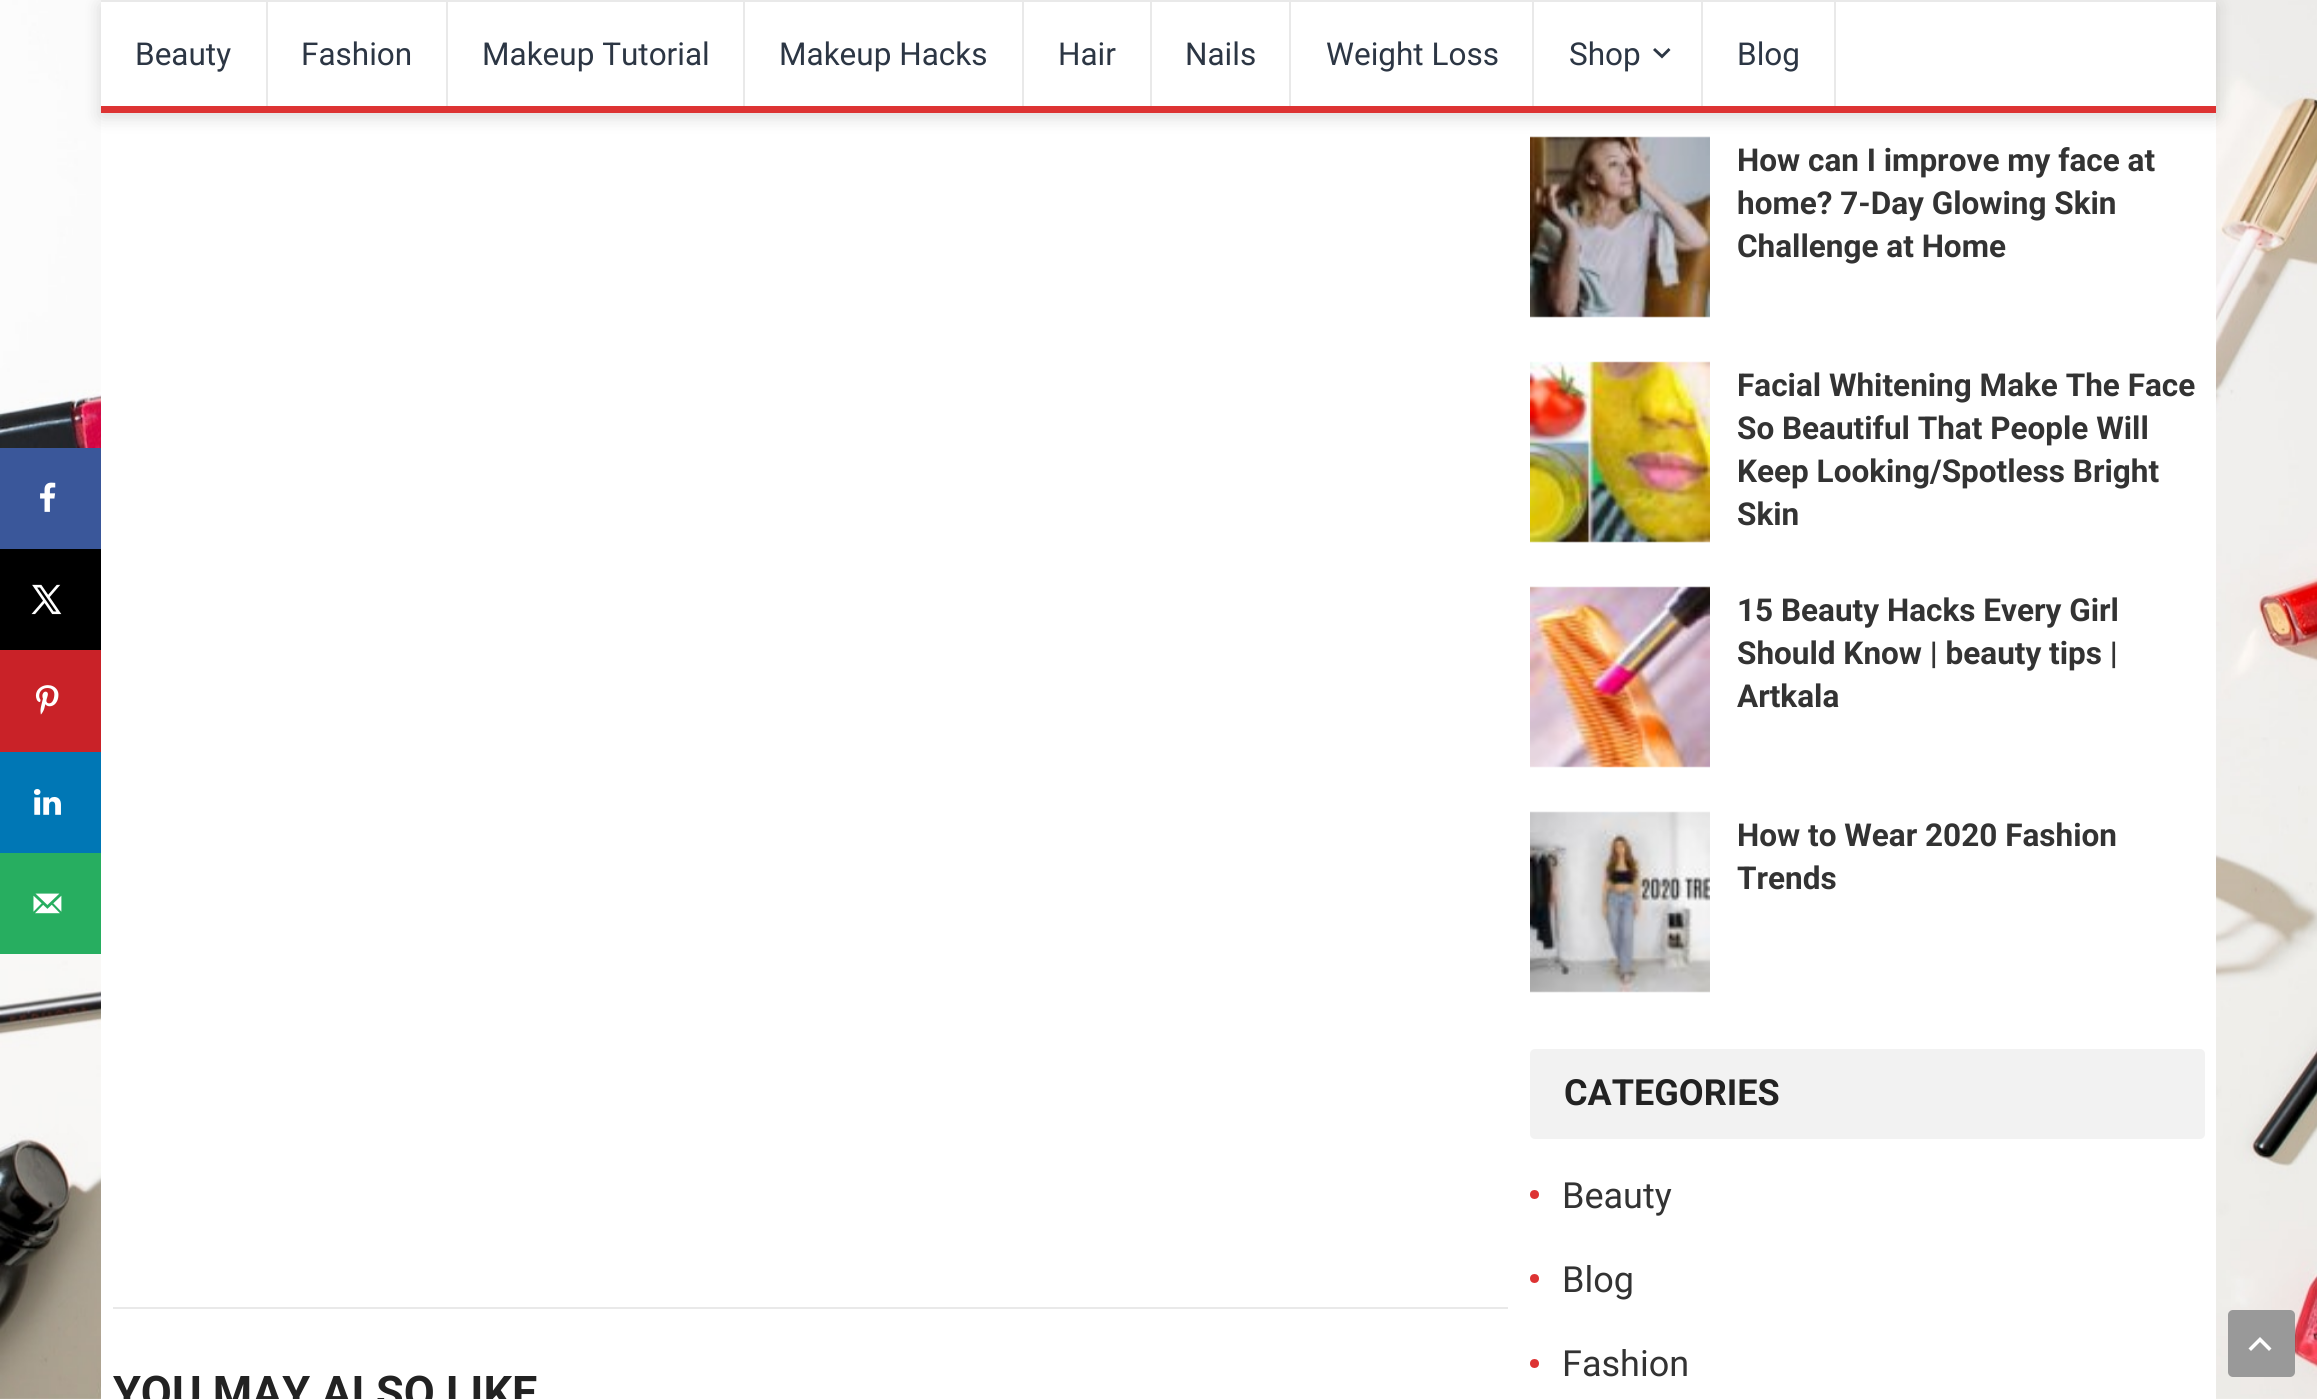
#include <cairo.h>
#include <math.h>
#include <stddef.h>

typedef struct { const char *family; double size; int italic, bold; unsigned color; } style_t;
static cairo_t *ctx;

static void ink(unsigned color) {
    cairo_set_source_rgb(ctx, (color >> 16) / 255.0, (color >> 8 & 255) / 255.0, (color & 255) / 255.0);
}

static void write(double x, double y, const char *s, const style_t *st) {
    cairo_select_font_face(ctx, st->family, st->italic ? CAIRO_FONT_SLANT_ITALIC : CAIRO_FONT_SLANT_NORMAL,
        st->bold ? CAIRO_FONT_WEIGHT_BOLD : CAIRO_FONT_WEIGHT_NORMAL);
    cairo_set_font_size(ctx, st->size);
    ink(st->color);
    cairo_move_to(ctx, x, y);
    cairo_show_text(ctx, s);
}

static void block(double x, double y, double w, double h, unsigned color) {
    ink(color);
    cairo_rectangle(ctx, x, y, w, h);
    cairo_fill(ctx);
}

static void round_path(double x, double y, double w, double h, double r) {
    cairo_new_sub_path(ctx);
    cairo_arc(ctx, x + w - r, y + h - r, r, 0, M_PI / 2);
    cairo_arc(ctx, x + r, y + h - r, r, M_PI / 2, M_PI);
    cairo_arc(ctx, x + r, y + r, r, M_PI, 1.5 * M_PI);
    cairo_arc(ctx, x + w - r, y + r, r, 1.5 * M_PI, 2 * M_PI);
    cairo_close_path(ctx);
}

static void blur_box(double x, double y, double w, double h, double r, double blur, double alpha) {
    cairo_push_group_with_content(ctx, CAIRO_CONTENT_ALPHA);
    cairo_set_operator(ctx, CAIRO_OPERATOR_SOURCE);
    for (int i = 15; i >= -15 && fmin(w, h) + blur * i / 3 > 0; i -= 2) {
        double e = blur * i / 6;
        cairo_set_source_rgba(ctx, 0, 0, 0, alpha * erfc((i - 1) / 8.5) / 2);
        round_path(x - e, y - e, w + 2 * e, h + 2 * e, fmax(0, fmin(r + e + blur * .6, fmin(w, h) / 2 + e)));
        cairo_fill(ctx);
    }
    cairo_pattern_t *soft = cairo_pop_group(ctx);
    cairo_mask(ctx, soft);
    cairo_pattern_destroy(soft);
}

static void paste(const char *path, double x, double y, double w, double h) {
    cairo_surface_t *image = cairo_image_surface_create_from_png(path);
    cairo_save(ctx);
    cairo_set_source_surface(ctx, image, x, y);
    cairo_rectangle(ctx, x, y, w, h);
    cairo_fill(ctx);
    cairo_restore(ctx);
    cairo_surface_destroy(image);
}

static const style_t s1 = {"Roboto", 31.5, 0, 0, 0x2c3644};
static const style_t s2 = {"Roboto", 31.5, 0, 1, 0x333333};
static const style_t s3 = {"Roboto", 36, 0, 1, 0x222222};
static const style_t s4 = {"Roboto", 36, 0, 0, 0x333333};
static const style_t s5 = {"Roboto", 45, 0, 1, 0x222222};

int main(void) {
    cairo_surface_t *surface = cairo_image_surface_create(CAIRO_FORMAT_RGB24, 2317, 1399);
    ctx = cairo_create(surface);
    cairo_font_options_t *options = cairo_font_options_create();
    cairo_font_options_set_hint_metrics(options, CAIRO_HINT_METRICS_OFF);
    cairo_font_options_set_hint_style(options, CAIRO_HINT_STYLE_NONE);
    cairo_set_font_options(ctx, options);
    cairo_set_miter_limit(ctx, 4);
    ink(0xffffff);
    cairo_paint(ctx);
    paste("pic1.png", 0, 0, 2317, 1399);
    block(0, 448, 101, 101, 0x3a579a);
    paste("pic2.png", 40, 482, 16, 30);
    block(0, 549, 101, 101, 0x000000);
    paste("pic3.png", 31, 584, 31, 31);
    block(0, 650, 101, 102, 0xc92228);
    paste("pic4.png", 35, 685, 24, 30);
    block(0, 752, 101, 101, 0x0077b5);
    paste("pic5.png", 34, 789, 27, 26);
    block(0, 853, 101, 101, 0x27ae60);
    paste("pic6.png", 33, 893, 29, 21);
    block(101, 113, 2115, 1286, 0xffffff);
    paste("pic7.png", 1530, 136, 180, 182);
    ink(0x000000);
    blur_box(101, 5, 2115, 112, 0, 9, 0.15);
    block(101, 2, 2115, 104, 0xffffff);
    block(101, 0, 2115, 2, 0xe9e9e9);
    block(101, 106, 2115, 7, 0xdd3333);
    block(266, 2, 2, 104, 0xe9e9e9);
    write(135, 65, "Beauty", &s1);
    block(446, 2, 2, 104, 0xe9e9e9);
    write(301, 65, "Fashion", &s1);
    block(743, 2, 2, 104, 0xe9e9e9);
    write(482, 65, "Makeup Tutorial", &s1);
    block(1022, 2, 2, 104, 0xe9e9e9);
    write(779, 65, "Makeup Hacks", &s1);
    block(1150, 2, 2, 104, 0xe9e9e9);
    write(1058, 65, "Hair", &s1);
    block(1289, 2, 2, 104, 0xe9e9e9);
    write(1185, 65, "Nails", &s1);
    block(1532, 2, 2, 104, 0xe9e9e9);
    write(1326, 65, "Weight Loss", &s1);
    block(1701, 2, 2, 104, 0xe9e9e9);
    write(1569, 65, "Shop", &s1);
    cairo_new_path(ctx);
    cairo_move_to(ctx, 1668.5, 48);
    cairo_line_to(ctx, 1670.5, 50);
    cairo_line_to(ctx, 1662, 58.5);
    cairo_line_to(ctx, 1653, 50);
    cairo_line_to(ctx, 1655, 48);
    cairo_line_to(ctx, 1662, 54.5);
    cairo_close_path(ctx);
    cairo_fill(ctx);
    block(1834, 2, 2, 104, 0xe9e9e9);
    write(1737, 65, "Blog", &s1);
    write(1737, 171, "How can I improve my face at", &s2);
    write(1737, 214, "home? 7-Day Glowing Skin", &s2);
    write(1737, 257, "Challenge at Home", &s2);
    paste("pic8.png", 1530, 361, 180, 182);
    write(1737, 396, "Facial Whitening Make The Face", &s2);
    write(1737, 439, "So Beautiful That People Will", &s2);
    write(1737, 482, "Keep Looking/Spotless Bright", &s2);
    write(1737, 525, "Skin", &s2);
    paste("pic9.png", 1530, 586, 180, 182);
    write(1737, 621, "15 Beauty Hacks Every Girl", &s2);
    write(1737, 664, "Should Know | beauty tips |", &s2);
    write(1737, 707, "Artkala", &s2);
    paste("pic10.png", 1530, 811, 180, 182);
    write(1737, 846, "How to Wear 2020 Fashion", &s2);
    write(1737, 889, "Trends", &s2);
    ink(0xf2f2f2);
    round_path(1530, 1049, 675, 90, 5);
    cairo_fill(ctx);
    write(1564, 1105, "CATEGORIES", &s3);
    ink(0xdd3333);
    cairo_new_path(ctx);
    cairo_arc(ctx, 1534.5, 1194.5, 4.5, 0, 2 * M_PI);
    cairo_fill(ctx);
    write(1562, 1208, "Beauty", &s4);
    ink(0xdd3333);
    cairo_new_path(ctx);
    cairo_arc(ctx, 1534.5, 1278.5, 4.5, 0, 2 * M_PI);
    cairo_fill(ctx);
    write(1562, 1292, "Blog", &s4);
    ink(0xdd3333);
    cairo_new_path(ctx);
    cairo_arc(ctx, 1534.5, 1363.5, 4.5, 0, 2 * M_PI);
    cairo_fill(ctx);
    write(1562, 1376, "Fashion", &s4);
    block(113, 1307, 1395, 2, 0xe9e9e9);
    write(113, 1408, "YOU MAY ALSO LIKE", &s5);
    ink(0x999999);
    round_path(2228, 1310, 67, 67, 5);
    cairo_fill(ctx);
    ink(0xffffff);
    cairo_new_path(ctx);
    cairo_move_to(ctx, 2269, 1351);
    cairo_line_to(ctx, 2260, 1342);
    cairo_line_to(ctx, 2251, 1351);
    cairo_line_to(ctx, 2248.5, 1348.5);
    cairo_line_to(ctx, 2260, 1337);
    cairo_line_to(ctx, 2271.5, 1348.5);
    cairo_close_path(ctx);
    cairo_fill(ctx);
    cairo_surface_write_to_png(surface, "screenshot.png");
    cairo_font_options_destroy(options);
    cairo_destroy(ctx);
    cairo_surface_destroy(surface);
    return 0;
}
